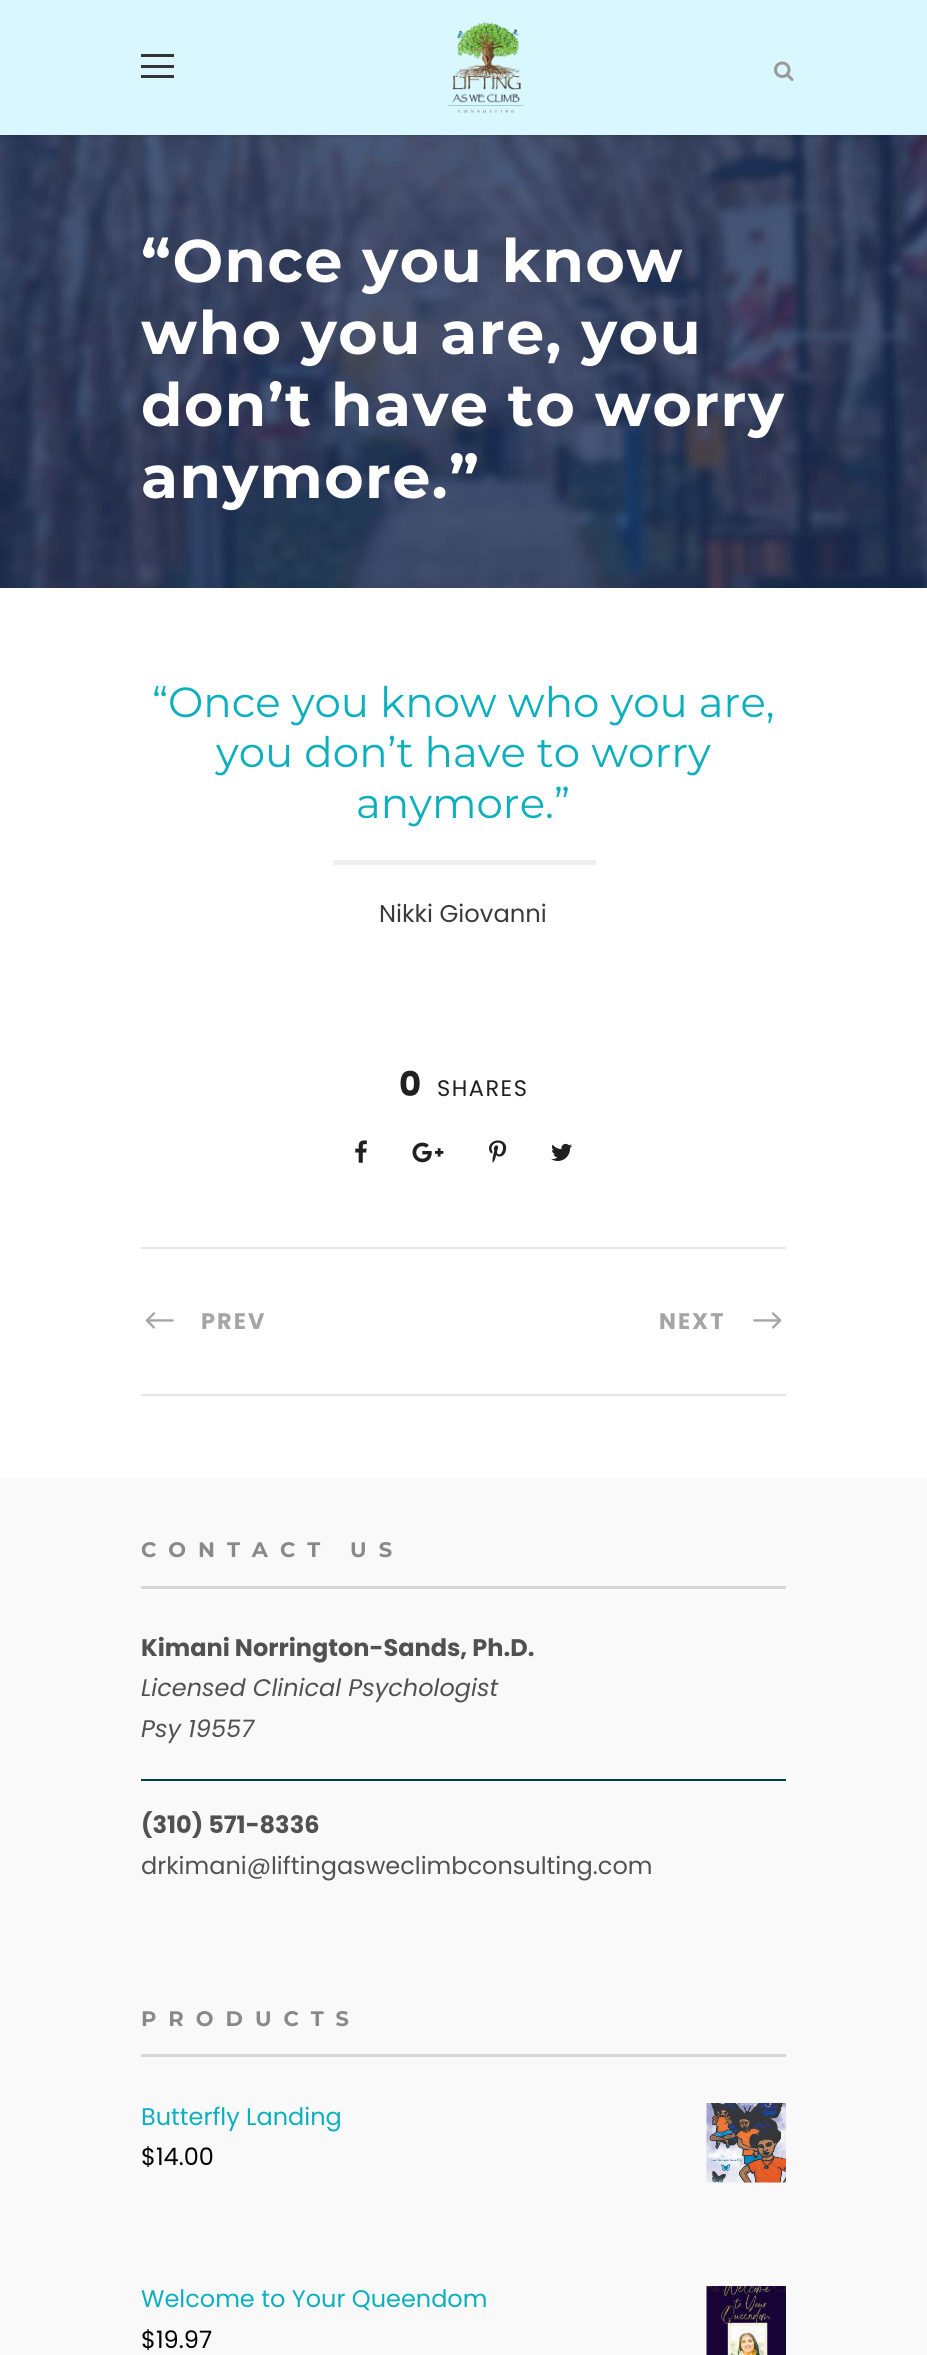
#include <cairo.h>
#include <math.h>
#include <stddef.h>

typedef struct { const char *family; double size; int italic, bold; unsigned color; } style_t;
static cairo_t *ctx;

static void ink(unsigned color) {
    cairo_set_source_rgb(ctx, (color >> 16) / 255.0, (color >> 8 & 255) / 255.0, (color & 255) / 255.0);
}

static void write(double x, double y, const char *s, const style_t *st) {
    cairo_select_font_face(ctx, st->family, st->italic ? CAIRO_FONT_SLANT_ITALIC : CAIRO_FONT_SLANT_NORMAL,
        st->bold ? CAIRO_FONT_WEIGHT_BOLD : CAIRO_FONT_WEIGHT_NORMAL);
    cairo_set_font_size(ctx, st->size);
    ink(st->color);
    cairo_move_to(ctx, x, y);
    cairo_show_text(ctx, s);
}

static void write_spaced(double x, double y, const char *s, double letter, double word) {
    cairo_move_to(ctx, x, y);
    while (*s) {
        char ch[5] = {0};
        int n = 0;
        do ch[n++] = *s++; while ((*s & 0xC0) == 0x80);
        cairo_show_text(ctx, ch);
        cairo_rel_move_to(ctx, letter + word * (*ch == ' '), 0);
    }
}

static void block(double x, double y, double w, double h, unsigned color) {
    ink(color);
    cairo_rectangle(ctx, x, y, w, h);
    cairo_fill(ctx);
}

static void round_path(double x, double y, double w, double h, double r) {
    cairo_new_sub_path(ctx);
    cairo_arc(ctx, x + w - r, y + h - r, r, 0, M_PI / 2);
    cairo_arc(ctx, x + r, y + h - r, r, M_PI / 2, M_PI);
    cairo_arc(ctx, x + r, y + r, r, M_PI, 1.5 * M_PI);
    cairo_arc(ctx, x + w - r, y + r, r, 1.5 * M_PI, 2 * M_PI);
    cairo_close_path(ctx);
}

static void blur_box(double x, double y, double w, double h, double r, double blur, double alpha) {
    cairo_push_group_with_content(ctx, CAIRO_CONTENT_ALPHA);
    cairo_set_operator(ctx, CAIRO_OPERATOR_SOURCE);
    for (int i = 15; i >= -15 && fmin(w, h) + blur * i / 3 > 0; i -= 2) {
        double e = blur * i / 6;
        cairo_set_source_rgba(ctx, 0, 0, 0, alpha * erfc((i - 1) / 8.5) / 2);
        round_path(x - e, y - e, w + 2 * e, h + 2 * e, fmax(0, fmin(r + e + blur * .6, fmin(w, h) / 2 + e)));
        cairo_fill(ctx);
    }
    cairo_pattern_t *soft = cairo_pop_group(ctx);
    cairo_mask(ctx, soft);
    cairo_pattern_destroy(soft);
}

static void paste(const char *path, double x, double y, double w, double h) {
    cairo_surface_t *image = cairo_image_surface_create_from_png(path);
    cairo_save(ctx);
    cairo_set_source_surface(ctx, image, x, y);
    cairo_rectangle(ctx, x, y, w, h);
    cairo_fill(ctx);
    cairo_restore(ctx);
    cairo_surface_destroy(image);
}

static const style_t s1 = {"Montserrat", 42, 0, 0, 0x0bafbe};
static const style_t s2 = {"Poppins", 24.25, 0, 0, 0x3a3a3a};
static const style_t s3 = {"Poppins", 34, 0, 1, 0x202020};
static const style_t s4 = {"Poppins", 24, 0, 1, 0x515151};
static const style_t s5 = {"Poppins", 24, 1, 0, 0x515151};
static const style_t s6 = {"Poppins", 24, 0, 0, 0x515151};
static const style_t s7 = {"Poppins", 24, 0, 0, 0x0bafbe};
static const style_t s8 = {"Poppins", 24, 0, 0, 0x000000};

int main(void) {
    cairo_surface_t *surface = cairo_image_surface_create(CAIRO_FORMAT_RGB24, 927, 2355);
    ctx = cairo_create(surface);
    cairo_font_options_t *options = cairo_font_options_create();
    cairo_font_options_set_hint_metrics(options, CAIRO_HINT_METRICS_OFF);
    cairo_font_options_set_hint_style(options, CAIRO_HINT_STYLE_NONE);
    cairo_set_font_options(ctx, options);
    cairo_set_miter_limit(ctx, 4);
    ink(0xffffff);
    cairo_paint(ctx);
    paste("pic3.png", 0, 135, 927, 453);
    ink(0x000000);
    blur_box(0, 2, 927, 135, 0, 1.5, 0.1);
    block(0, 0, 927, 135, 0xd8f7ff);
    block(141, 54, 33, 3, 0x333333);
    block(141, 65, 33, 3, 0x333333);
    block(141, 75, 33, 3, 0x333333);
    paste("pic1.png", 448, 22, 76, 91);
    paste("pic2.png", 774, 61, 20, 20);
    cairo_select_font_face(ctx, "Montserrat", CAIRO_FONT_SLANT_NORMAL, CAIRO_FONT_WEIGHT_BOLD);
    cairo_set_font_size(ctx, 60);
    ink(0xffffff);
    write_spaced(141, 282, "“Once you know", 1.5, 0);
    write_spaced(141, 354, "who you are, you", 1.5, 0);
    write_spaced(141, 426, "don’t have to worry", 1.5, 0);
    write_spaced(141, 498, "anymore.”", 1.5, 0);
    write(152, 717, "“Once you know who you are,", &s1);
    write(216, 767, "you don’t have to worry", &s1);
    write(356, 818, "anymore.”", &s1);
    block(333, 860, 263, 5, 0xefefef);
    write(379, 922, "Nikki Giovanni", &s2);
    write(399, 1096, "0", &s3);
    cairo_select_font_face(ctx, "Poppins", CAIRO_FONT_SLANT_NORMAL, CAIRO_FONT_WEIGHT_NORMAL);
    cairo_set_font_size(ctx, 22.5);
    write_spaced(437, 1096, "SHARES", 1.5, 0);
    paste("pic4.png", 355, 1140, 12, 23);
    paste("pic5.png", 412, 1142, 32, 21);
    paste("pic6.png", 489, 1140, 18, 23);
    paste("pic7.png", 551, 1143, 21, 18);
    block(141, 1247, 645, 2, 0xe6e6e6);
    block(141, 1394, 645, 2, 0xe6e6e6);
    paste("pic8.png", 145, 1312, 29, 17);
    cairo_select_font_face(ctx, "Poppins", CAIRO_FONT_SLANT_NORMAL, CAIRO_FONT_WEIGHT_BOLD);
    ink(0xa5a5a5);
    write_spaced(201, 1329, "PREV", 2, 0);
    write_spaced(659, 1329, "NEXT", 2, 0);
    paste("pic9.png", 753, 1312, 29, 17);
    block(0, 1478, 927, 877, 0xf9f9f9);
    block(141, 1586, 645, 3, 0xd6d6d6);
    cairo_select_font_face(ctx, "Montserrat", CAIRO_FONT_SLANT_NORMAL, CAIRO_FONT_WEIGHT_BOLD);
    cairo_set_font_size(ctx, 21);
    ink(0x898989);
    write_spaced(141, 1557, "CONTACT US", 12, 0);
    write(141, 1656, "Kimani Norrington-Sands, Ph.D.", &s4);
    write(141, 1696, "Licensed Clinical Psychologist", &s5);
    write(141, 1737, "Psy 19557", &s5);
    block(141, 1779, 645, 2, 0x004249);
    write(141, 1833, "(310) 571-8336", &s4);
    write(141, 1874, "drkimani@liftingasweclimbconsulting.com", &s6);
    block(141, 2054, 645, 3, 0xd6d6d6);
    cairo_select_font_face(ctx, "Montserrat", CAIRO_FONT_SLANT_NORMAL, CAIRO_FONT_WEIGHT_BOLD);
    cairo_set_font_size(ctx, 21);
    ink(0x898989);
    write_spaced(141, 2026, "PRODUCTS", 12, 0);
    write(141, 2125, "Butterfly Landing", &s7);
    paste("pic10.png", 706, 2103, 80, 80);
    write(141, 2165, "$14.00", &s8);
    write(141, 2307, "Welcome to Your Queendom", &s7);
    paste("pic11.png", 706, 2286, 80, 69);
    write(141, 2348, "$19.97", &s8);
    cairo_surface_write_to_png(surface, "screenshot.png");
    cairo_font_options_destroy(options);
    cairo_destroy(ctx);
    cairo_surface_destroy(surface);
    return 0;
}
